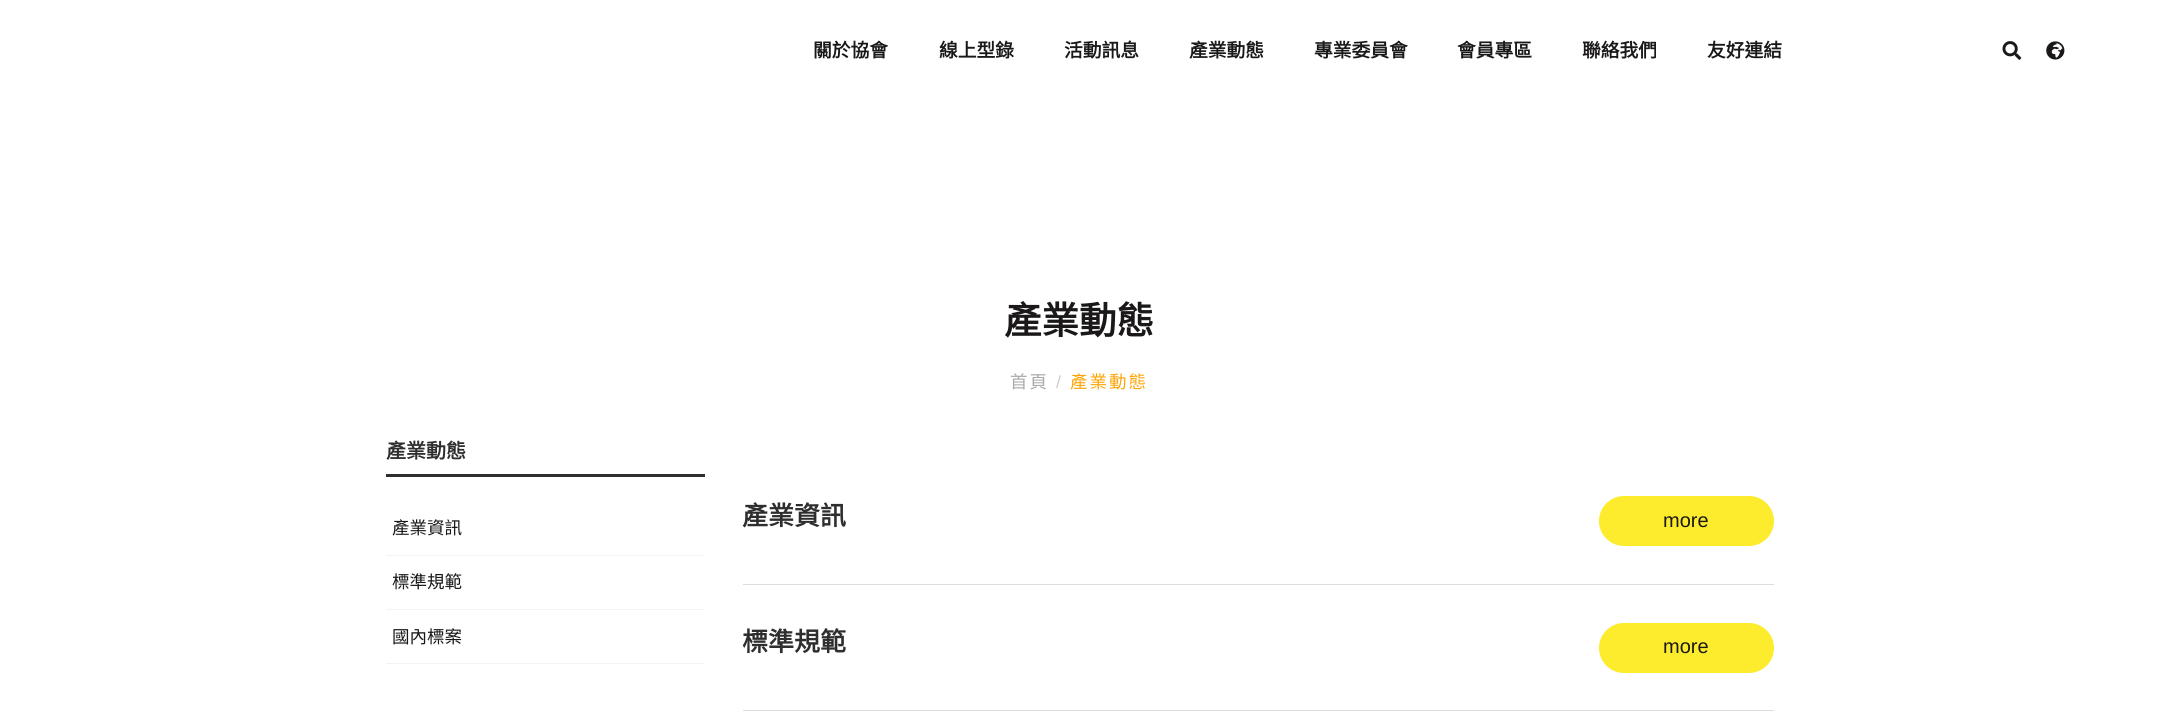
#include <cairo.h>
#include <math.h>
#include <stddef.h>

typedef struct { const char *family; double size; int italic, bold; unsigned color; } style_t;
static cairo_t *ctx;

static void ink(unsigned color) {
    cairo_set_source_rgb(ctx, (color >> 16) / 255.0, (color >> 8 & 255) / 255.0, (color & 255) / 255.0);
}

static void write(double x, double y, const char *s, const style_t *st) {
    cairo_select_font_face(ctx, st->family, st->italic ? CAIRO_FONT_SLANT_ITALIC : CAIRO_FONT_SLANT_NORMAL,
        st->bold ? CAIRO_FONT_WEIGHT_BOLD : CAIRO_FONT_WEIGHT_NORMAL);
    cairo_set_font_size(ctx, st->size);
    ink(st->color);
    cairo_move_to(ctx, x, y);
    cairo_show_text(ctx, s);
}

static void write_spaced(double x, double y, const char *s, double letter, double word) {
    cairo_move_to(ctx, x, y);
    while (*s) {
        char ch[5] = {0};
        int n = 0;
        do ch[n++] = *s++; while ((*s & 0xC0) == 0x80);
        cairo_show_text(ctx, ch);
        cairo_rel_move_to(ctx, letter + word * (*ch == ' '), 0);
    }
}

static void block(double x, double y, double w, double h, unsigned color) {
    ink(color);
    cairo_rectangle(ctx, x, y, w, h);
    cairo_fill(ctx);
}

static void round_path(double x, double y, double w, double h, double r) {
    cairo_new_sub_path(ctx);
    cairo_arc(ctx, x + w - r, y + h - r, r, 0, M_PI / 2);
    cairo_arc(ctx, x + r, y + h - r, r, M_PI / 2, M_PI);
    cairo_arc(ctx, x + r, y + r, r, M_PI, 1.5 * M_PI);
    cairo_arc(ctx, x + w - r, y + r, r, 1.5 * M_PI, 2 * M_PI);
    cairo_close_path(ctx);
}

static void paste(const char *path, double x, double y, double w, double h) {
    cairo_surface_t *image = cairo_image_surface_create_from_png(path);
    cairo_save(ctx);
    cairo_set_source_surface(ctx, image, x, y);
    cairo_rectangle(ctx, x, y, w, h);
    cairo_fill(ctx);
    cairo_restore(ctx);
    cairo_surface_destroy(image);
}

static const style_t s1 = {"Noto Sans CJK TC", 18.75, 0, 1, 0x1a1818};
static const style_t s2 = {"Noto Sans CJK TC", 37.5, 0, 1, 0x1a1818};
static const style_t s3 = {"Noto Sans CJK TC", 20, 0, 1, 0x2e2e2e};
static const style_t s4 = {"Noto Sans CJK TC", 17.5, 0, 0, 0x1a1818};
static const style_t s5 = {"Noto Sans CJK TC", 26, 0, 1, 0x2e2e2e};
static const style_t s6 = {"Liberation Sans", 20, 0, 0, 0x1a1818};

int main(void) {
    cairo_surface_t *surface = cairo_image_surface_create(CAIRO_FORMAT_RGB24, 2158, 712);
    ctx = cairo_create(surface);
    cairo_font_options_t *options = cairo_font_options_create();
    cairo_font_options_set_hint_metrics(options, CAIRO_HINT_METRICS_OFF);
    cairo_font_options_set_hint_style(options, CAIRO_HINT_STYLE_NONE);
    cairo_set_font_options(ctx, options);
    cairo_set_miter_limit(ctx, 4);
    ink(0xffffff);
    cairo_paint(ctx);
    write(813, 57, "關於協會", &s1);
    write(939, 57, "線上型錄", &s1);
    write(1064, 57, "活動訊息", &s1);
    write(1189, 57, "產業動態", &s1);
    write(1314, 57, "專業委員會", &s1);
    write(1457, 57, "會員專區", &s1);
    write(1582, 57, "聯絡我們", &s1);
    write(1707, 57, "友好連結", &s1);
    paste("pic1.png", 2002, 41, 20, 19);
    paste("pic2.png", 2046, 41, 19, 19);
    write(1004, 334, "產業動態", &s2);
    cairo_select_font_face(ctx, "Noto Sans CJK TC", CAIRO_FONT_SLANT_NORMAL, CAIRO_FONT_WEIGHT_NORMAL);
    cairo_set_font_size(ctx, 17.5);
    ink(0xaaaaaa);
    write_spaced(1010, 388, "首頁", 2, 0);
    cairo_select_font_face(ctx, "Liberation Sans", CAIRO_FONT_SLANT_NORMAL, CAIRO_FONT_WEIGHT_NORMAL);
    ink(0xcccccc);
    write_spaced(1056, 388, "/", 2, 0);
    cairo_select_font_face(ctx, "Noto Sans CJK TC", CAIRO_FONT_SLANT_NORMAL, CAIRO_FONT_WEIGHT_NORMAL);
    ink(0xfda404);
    write_spaced(1070, 388, "產業動態", 2, 0);
    block(386, 474, 319, 3, 0x2e2e2e);
    write(386, 458, "產業動態", &s3);
    block(386, 555, 319, 1, 0xf3f3f3);
    write(392, 534, "產業資訊", &s4);
    block(386, 609, 319, 1, 0xf3f3f3);
    write(392, 588, "標準規範", &s4);
    block(386, 663, 319, 1, 0xf3f3f3);
    write(392, 643, "國內標案", &s4);
    block(743, 584, 1031, 1, 0xdddddd);
    write(742, 525, "產業資訊", &s5);
    ink(0xfdec2d);
    round_path(1599.5, 496.5, 174, 49, 24.5);
    cairo_fill_preserve(ctx);
    cairo_set_line_width(ctx, 1);
    cairo_stroke(ctx);
    write(1663, 527, "more", &s6);
    block(743, 710, 1031, 1, 0xdddddd);
    write(742, 651, "標準規範", &s5);
    ink(0xfdec2d);
    round_path(1599.5, 623.5, 174, 49, 24.5);
    cairo_fill_preserve(ctx);
    cairo_stroke(ctx);
    write(1663, 653, "more", &s6);
    cairo_surface_write_to_png(surface, "screenshot.png");
    cairo_font_options_destroy(options);
    cairo_destroy(ctx);
    cairo_surface_destroy(surface);
    return 0;
}
